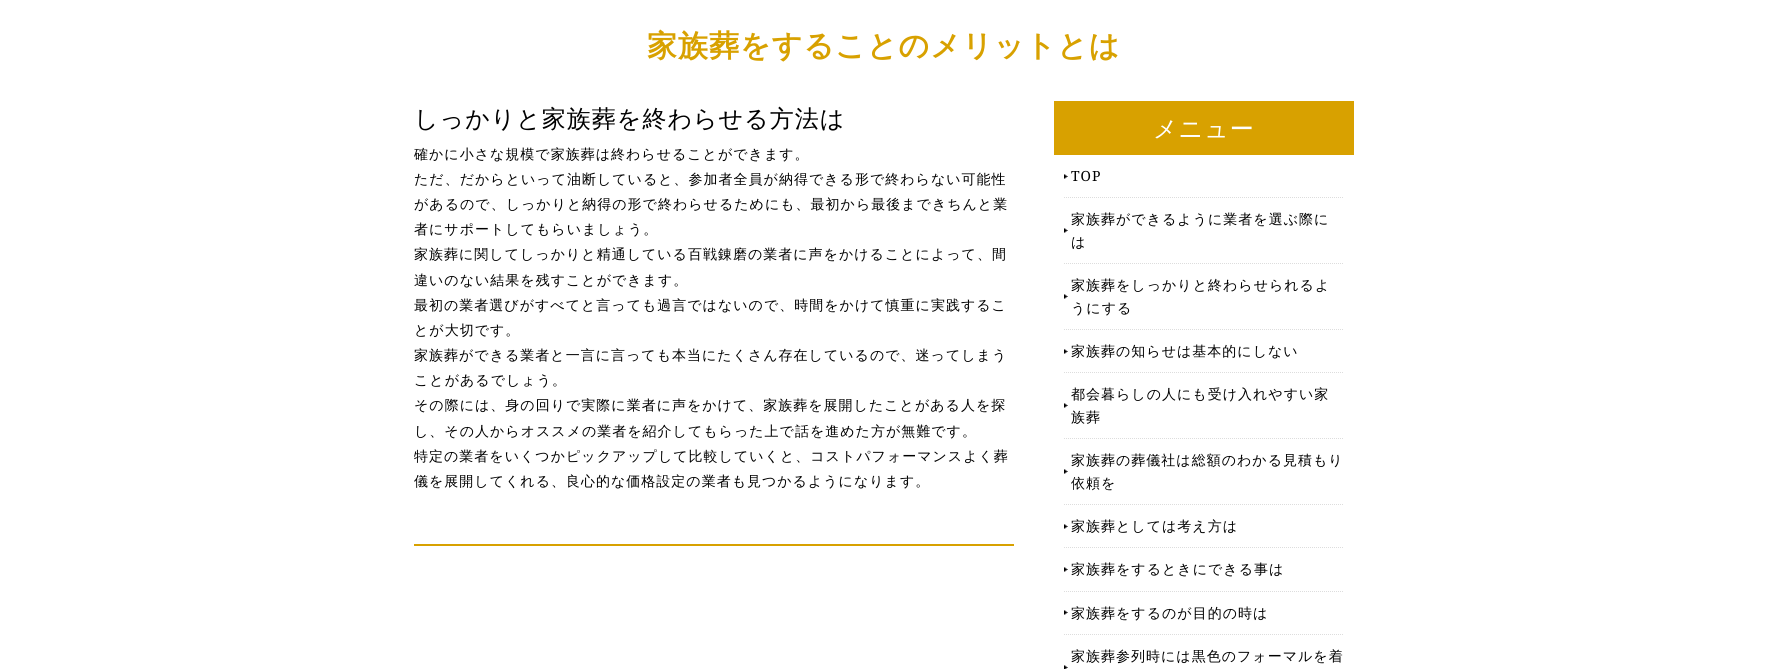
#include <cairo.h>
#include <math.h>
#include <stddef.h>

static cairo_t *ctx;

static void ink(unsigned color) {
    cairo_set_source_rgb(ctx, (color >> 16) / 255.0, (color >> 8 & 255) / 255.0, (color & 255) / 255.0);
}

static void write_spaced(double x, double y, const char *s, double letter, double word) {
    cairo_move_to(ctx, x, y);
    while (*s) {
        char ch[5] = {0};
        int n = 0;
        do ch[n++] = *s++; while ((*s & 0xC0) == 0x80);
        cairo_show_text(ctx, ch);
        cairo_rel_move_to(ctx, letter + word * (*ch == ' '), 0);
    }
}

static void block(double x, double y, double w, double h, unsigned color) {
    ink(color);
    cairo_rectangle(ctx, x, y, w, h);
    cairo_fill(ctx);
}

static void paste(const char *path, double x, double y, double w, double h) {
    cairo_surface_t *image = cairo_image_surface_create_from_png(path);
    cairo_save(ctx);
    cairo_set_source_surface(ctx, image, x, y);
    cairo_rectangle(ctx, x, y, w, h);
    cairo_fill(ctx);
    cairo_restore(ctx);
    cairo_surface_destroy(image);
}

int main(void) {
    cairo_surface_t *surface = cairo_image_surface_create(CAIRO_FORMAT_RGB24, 1767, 669);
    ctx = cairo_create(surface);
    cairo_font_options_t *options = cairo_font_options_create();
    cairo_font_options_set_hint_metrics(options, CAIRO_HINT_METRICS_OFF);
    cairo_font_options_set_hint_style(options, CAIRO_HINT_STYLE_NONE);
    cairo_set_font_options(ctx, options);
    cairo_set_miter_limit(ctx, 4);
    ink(0xffffff);
    cairo_paint(ctx);
    cairo_select_font_face(ctx, "WenQuanYi Zen Hei", CAIRO_FONT_SLANT_NORMAL, CAIRO_FONT_WEIGHT_BOLD);
    cairo_set_font_size(ctx, 30);
    ink(0xd8a100);
    write_spaced(647, 56, "家族葬をすることのメリットとは", 1, 0);
    cairo_select_font_face(ctx, "WenQuanYi Zen Hei Medium", CAIRO_FONT_SLANT_NORMAL, CAIRO_FONT_WEIGHT_NORMAL);
    cairo_set_font_size(ctx, 24);
    ink(0x000000);
    write_spaced(414, 127, "しっかりと家族葬を終わらせる方法は", 1, 0);
    cairo_set_font_size(ctx, 14);
    write_spaced(414, 159, "確かに小さな規模で家族葬は終わらせることができます。", 1, 0);
    write_spaced(414, 184, "ただ、だからといって油断していると、参加者全員が納得できる形で終わらない可能性", 1, 0);
    write_spaced(414, 209, "があるので、しっかりと納得の形で終わらせるためにも、最初から最後まできちんと業", 1, 0);
    write_spaced(414, 234, "者にサポートしてもらいましょう。", 1, 0);
    write_spaced(414, 259, "家族葬に関してしっかりと精通している百戦錬磨の業者に声をかけることによって、間", 1, 0);
    write_spaced(414, 285, "違いのない結果を残すことができます。", 1, 0);
    write_spaced(414, 310, "最初の業者選びがすべてと言っても過言ではないので、時間をかけて慎重に実践するこ", 1, 0);
    write_spaced(414, 335, "とが大切です。", 1, 0);
    write_spaced(414, 360, "家族葬ができる業者と一言に言っても本当にたくさん存在しているので、迷ってしまう", 1, 0);
    write_spaced(414, 385, "ことがあるでしょう。", 1, 0);
    write_spaced(414, 410, "その際には、身の回りで実際に業者に声をかけて、家族葬を展開したことがある人を探", 1, 0);
    write_spaced(414, 436, "し、その人からオススメの業者を紹介してもらった上で話を進めた方が無難です。", 1, 0);
    cairo_save(ctx);
    cairo_rectangle(ctx, 414, 91, 940, 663);
    cairo_clip(ctx);
    write_spaced(414, 461, "特定の業者をいくつかピックアップして比較していくと、コストパフォーマンスよく葬", 1, 0);
    cairo_restore(ctx);
    write_spaced(414, 486, "儀を展開してくれる、良心的な価格設定の業者も見つかるようになります。", 1, 0);
    block(414, 544, 600, 2, 0xd8a100);
    block(1054, 101, 300, 54, 0xd8a100);
    cairo_set_font_size(ctx, 24);
    ink(0xffffff);
    write_spaced(1153, 137, "メニュー", 1, 0);
    paste("pic1.png", 1064, 174, 4, 5);
    cairo_new_path(ctx);
    cairo_move_to(ctx, 1064, 197.5);
    cairo_line_to(ctx, 1344, 197.5);
    ink(0xdddddd);
    cairo_set_line_width(ctx, 1);
    cairo_set_dash(ctx, (double[]){1, 1}, 2, 0);
    cairo_stroke(ctx);
    cairo_select_font_face(ctx, "Noto Serif", CAIRO_FONT_SLANT_NORMAL, CAIRO_FONT_WEIGHT_NORMAL);
    cairo_set_font_size(ctx, 14);
    ink(0x000000);
    write_spaced(1071, 181, "TOP", 1, 0);
    paste("pic1.png", 1064, 228, 4, 5);
    cairo_new_path(ctx);
    cairo_move_to(ctx, 1064, 263.5);
    cairo_line_to(ctx, 1344, 263.5);
    ink(0xdddddd);
    cairo_stroke(ctx);
    cairo_select_font_face(ctx, "WenQuanYi Zen Hei Medium", CAIRO_FONT_SLANT_NORMAL, CAIRO_FONT_WEIGHT_NORMAL);
    ink(0x000000);
    write_spaced(1071, 224, "家族葬ができるように業者を選ぶ際に", 1, 0);
    write_spaced(1071, 247, "は", 1, 0);
    paste("pic1.png", 1064, 294, 4, 5);
    cairo_new_path(ctx);
    cairo_move_to(ctx, 1064, 329.5);
    cairo_line_to(ctx, 1344, 329.5);
    ink(0xdddddd);
    cairo_stroke(ctx);
    ink(0x000000);
    write_spaced(1071, 290, "家族葬をしっかりと終わらせられるよ", 1, 0);
    write_spaced(1071, 313, "うにする", 1, 0);
    paste("pic1.png", 1064, 349, 4, 5);
    cairo_new_path(ctx);
    cairo_move_to(ctx, 1064, 372.5);
    cairo_line_to(ctx, 1344, 372.5);
    ink(0xdddddd);
    cairo_stroke(ctx);
    ink(0x000000);
    write_spaced(1071, 356, "家族葬の知らせは基本的にしない", 1, 0);
    paste("pic1.png", 1064, 403, 4, 5);
    cairo_new_path(ctx);
    cairo_move_to(ctx, 1064, 438.5);
    cairo_line_to(ctx, 1344, 438.5);
    ink(0xdddddd);
    cairo_stroke(ctx);
    ink(0x000000);
    write_spaced(1071, 399, "都会暮らしの人にも受け入れやすい家", 1, 0);
    write_spaced(1071, 422, "族葬", 1, 0);
    paste("pic1.png", 1064, 469, 4, 5);
    cairo_new_path(ctx);
    cairo_move_to(ctx, 1064, 504.5);
    cairo_line_to(ctx, 1344, 504.5);
    ink(0xdddddd);
    cairo_stroke(ctx);
    ink(0x000000);
    write_spaced(1071, 465, "家族葬の葬儀社は総額のわかる見積もり", 1, 0);
    write_spaced(1071, 488, "依頼を", 1, 0);
    paste("pic1.png", 1064, 524, 4, 5);
    cairo_new_path(ctx);
    cairo_move_to(ctx, 1064, 547.5);
    cairo_line_to(ctx, 1344, 547.5);
    ink(0xdddddd);
    cairo_stroke(ctx);
    ink(0x000000);
    write_spaced(1071, 531, "家族葬としては考え方は", 1, 0);
    paste("pic1.png", 1064, 567, 4, 5);
    cairo_new_path(ctx);
    cairo_move_to(ctx, 1064, 591.5);
    cairo_line_to(ctx, 1344, 591.5);
    ink(0xdddddd);
    cairo_stroke(ctx);
    ink(0x000000);
    write_spaced(1071, 574, "家族葬をするときにできる事は", 1, 0);
    paste("pic1.png", 1064, 610, 4, 5);
    cairo_new_path(ctx);
    cairo_move_to(ctx, 1064, 634.5);
    cairo_line_to(ctx, 1344, 634.5);
    ink(0xdddddd);
    cairo_stroke(ctx);
    ink(0x000000);
    write_spaced(1071, 618, "家族葬をするのが目的の時は", 1, 0);
    paste("pic2.png", 1064, 665, 4, 4);
    write_spaced(1071, 661, "家族葬参列時には黒色のフォーマルを着", 1, 0);
    cairo_surface_write_to_png(surface, "screenshot.png");
    cairo_font_options_destroy(options);
    cairo_destroy(ctx);
    cairo_surface_destroy(surface);
    return 0;
}
